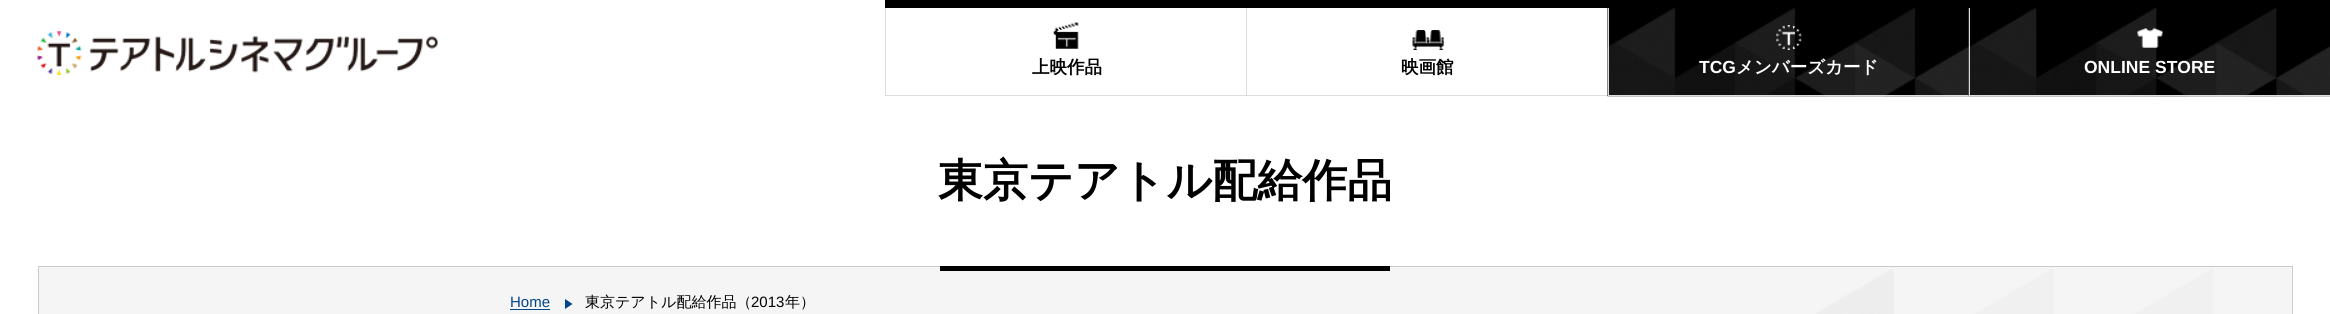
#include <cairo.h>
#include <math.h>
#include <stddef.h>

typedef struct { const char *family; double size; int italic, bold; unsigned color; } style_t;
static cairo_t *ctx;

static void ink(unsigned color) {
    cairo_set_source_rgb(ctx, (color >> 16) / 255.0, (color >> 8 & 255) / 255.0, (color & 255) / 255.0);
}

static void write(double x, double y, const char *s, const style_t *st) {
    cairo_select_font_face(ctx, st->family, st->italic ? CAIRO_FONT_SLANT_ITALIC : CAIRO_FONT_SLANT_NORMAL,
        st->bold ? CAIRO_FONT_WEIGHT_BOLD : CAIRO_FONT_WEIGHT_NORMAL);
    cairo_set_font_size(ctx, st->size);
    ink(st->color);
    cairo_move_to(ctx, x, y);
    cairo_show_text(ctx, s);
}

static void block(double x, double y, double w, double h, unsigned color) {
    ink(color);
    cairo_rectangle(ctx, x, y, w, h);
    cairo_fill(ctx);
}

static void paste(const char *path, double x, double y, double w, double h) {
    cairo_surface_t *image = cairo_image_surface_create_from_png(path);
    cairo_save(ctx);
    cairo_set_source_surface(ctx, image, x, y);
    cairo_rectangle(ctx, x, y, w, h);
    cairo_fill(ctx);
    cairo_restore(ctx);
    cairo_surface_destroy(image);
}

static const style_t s1 = {"WenQuanYi Zen Hei", 17.5, 0, 1, 0x000000};
static const style_t s2 = {"Liberation Sans", 17.5, 0, 1, 0xffffff};
static const style_t s3 = {"WenQuanYi Zen Hei", 17.5, 0, 1, 0xffffff};
static const style_t s4 = {"WenQuanYi Zen Hei", 45, 0, 1, 0x000000};
static const style_t s5 = {"Liberation Sans", 15, 0, 0, 0x004688};
static const style_t s6 = {"WenQuanYi Zen Hei Medium", 15, 0, 0, 0x000000};
static const style_t s7 = {"Liberation Sans", 15, 0, 0, 0x000000};

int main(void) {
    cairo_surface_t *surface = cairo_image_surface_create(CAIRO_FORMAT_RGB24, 2330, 314);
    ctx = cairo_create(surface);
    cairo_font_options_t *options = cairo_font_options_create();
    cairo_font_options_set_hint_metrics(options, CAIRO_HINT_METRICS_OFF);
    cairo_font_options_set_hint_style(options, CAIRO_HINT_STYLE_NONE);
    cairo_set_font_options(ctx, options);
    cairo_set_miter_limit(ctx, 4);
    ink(0xffffff);
    cairo_paint(ctx);
    paste("pic1.png", 37, 31, 401, 44);
    block(885, 0, 1445, 8, 0x000000);
    block(885, 95, 723, 1, 0xdddddd);
    block(885, 8, 1, 88, 0xdddddd);
    paste("pic2.png", 1053, 22, 26, 27);
    write(1032, 73, "上映作品", &s1);
    block(1246, 8, 1, 88, 0xdddddd);
    paste("pic3.png", 1412, 30, 32, 20);
    write(1401, 73, "映画館", &s1);
    paste("pic4.png", 1607, 7, 362, 90);
    block(1608, 95, 361, 1, 0xdddddd);
    block(1608, 8, 1, 88, 0xdddddd);
    paste("pic5.png", 1776, 25, 26, 25);
    write(1699, 73, "TCG", &s2);
    write(1736, 73, "メンバーズカード", &s3);
    paste("pic6.png", 1968, 7, 362, 90);
    block(1969, 95, 361, 1, 0xdddddd);
    block(1969, 8, 1, 88, 0xdddddd);
    paste("pic7.png", 2137, 28, 26, 20);
    write(2084, 73, "ONLINE STORE", &s2);
    write(938, 196, "東京テアトル配給作品", &s4);
    block(39, 267, 2253, 47, 0xf5f5f5);
    paste("pic8.png", 1816, 269, 397, 45);
    cairo_rectangle(ctx, 38.5, 266.5, 2254, 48);
    ink(0xcccccc);
    cairo_set_line_width(ctx, 1);
    cairo_stroke(ctx);
    block(940, 266, 450, 5, 0x000000);
    write(510, 307, "Home", &s5);
    block(510, 309, 40, 1, 0x004688);
    cairo_new_path(ctx);
    cairo_move_to(ctx, 565, 309);
    cairo_line_to(ctx, 565, 299);
    cairo_line_to(ctx, 572.5, 304);
    cairo_close_path(ctx);
    cairo_fill(ctx);
    write(585, 307, "東京テアトル配給作品（", &s6);
    write(751, 307, "2013", &s7);
    write(785, 307, "年）", &s6);
    cairo_surface_write_to_png(surface, "screenshot.png");
    cairo_font_options_destroy(options);
    cairo_destroy(ctx);
    cairo_surface_destroy(surface);
    return 0;
}
